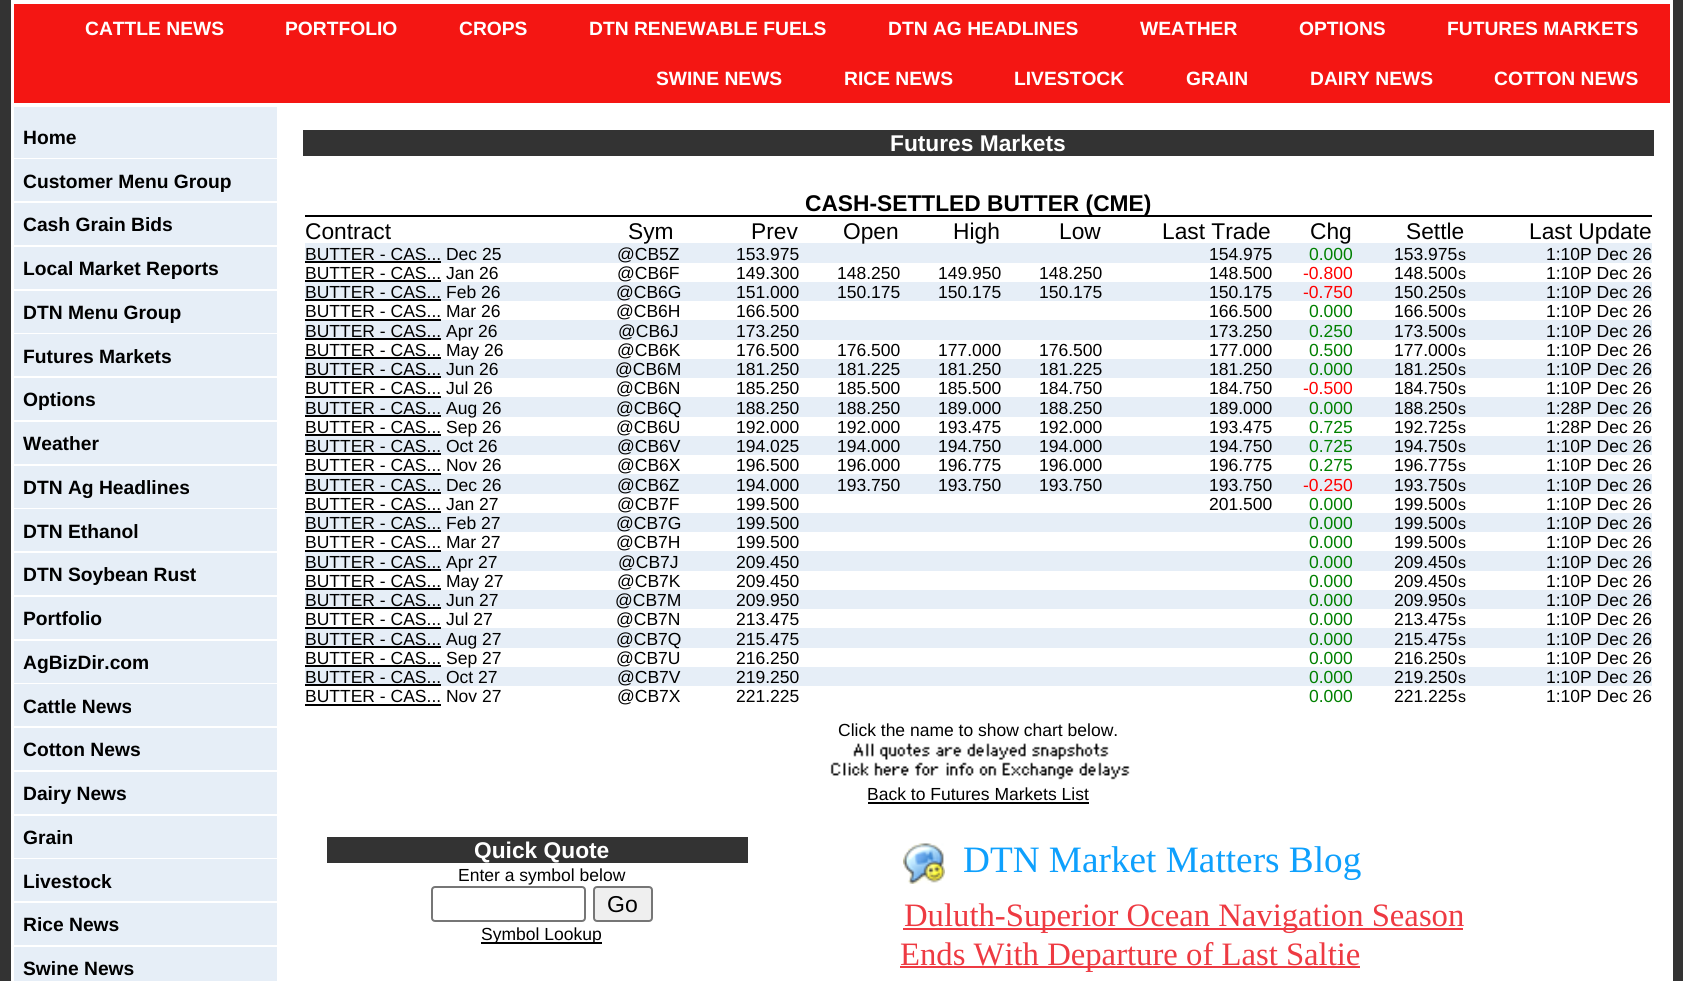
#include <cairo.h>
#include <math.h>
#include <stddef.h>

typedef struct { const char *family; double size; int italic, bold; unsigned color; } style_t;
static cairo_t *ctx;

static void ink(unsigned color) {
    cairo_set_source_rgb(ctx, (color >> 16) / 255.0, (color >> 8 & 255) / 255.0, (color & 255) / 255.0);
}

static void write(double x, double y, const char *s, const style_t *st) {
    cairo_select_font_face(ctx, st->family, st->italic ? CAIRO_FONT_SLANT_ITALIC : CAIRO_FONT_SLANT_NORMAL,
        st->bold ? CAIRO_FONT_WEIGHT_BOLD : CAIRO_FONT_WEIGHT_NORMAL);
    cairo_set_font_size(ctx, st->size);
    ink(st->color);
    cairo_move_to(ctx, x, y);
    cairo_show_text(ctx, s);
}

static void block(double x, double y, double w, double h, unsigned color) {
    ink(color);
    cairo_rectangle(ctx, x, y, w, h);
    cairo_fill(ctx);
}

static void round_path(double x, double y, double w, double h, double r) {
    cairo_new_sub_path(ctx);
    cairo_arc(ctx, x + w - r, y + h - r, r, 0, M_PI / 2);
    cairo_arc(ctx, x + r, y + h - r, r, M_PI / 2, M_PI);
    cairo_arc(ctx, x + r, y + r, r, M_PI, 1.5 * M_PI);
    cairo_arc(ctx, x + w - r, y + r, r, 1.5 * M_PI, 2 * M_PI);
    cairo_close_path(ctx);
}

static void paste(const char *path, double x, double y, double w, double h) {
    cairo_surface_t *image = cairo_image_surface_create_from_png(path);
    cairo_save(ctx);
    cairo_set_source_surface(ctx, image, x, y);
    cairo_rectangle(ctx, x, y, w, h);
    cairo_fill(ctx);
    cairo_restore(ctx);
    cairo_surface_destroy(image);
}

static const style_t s1 = {"Liberation Sans", 19.25, 0, 1, 0xffffff};
static const style_t s2 = {"Liberation Sans", 19.25, 0, 1, 0x000000};
static const style_t s3 = {"Liberation Sans", 22.75, 0, 1, 0xffffff};
static const style_t s4 = {"Liberation Sans", 22.75, 0, 1, 0x000000};
static const style_t s5 = {"Liberation Sans", 22.75, 0, 0, 0x000000};
static const style_t s6 = {"Liberation Sans", 17.5, 0, 0, 0x000000};
static const style_t s7 = {"Liberation Sans", 17.5, 0, 0, 0x008000};
static const style_t s8 = {"Liberation Sans", 16, 0, 0, 0x000000};
static const style_t s9 = {"Liberation Sans", 17.5, 0, 0, 0xff0000};
static const style_t s10 = {"Liberation Sans", 23, 0, 0, 0x000000};
static const style_t s11 = {"Liberation Serif", 37.25, 0, 0, 0x0ea0fd};
static const style_t s12 = {"Liberation Serif", 32.7, 0, 0, 0xee3a42};

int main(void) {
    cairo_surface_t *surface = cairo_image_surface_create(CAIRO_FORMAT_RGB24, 1683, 981);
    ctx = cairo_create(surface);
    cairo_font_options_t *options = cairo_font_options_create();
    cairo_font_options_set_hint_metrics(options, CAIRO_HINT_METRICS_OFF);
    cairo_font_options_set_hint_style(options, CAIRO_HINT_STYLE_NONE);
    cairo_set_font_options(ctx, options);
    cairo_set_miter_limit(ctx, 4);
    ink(0x333333);
    cairo_paint(ctx);
    block(11, 0, 1662, 981, 0xffffff);
    block(14, 4, 1656, 99, 0xf41613);
    write(85, 35, "CATTLE NEWS", &s1);
    write(285, 35, "PORTFOLIO", &s1);
    write(459, 35, "CROPS", &s1);
    write(589, 35, "DTN RENEWABLE FUELS", &s1);
    write(888, 35, "DTN AG HEADLINES", &s1);
    write(1140, 35, "WEATHER", &s1);
    write(1299, 35, "OPTIONS", &s1);
    write(1447, 35, "FUTURES MARKETS", &s1);
    write(656, 85, "SWINE NEWS", &s1);
    write(844, 85, "RICE NEWS", &s1);
    write(1014, 85, "LIVESTOCK", &s1);
    write(1186, 85, "GRAIN", &s1);
    write(1310, 85, "DAIRY NEWS", &s1);
    write(1494, 85, "COTTON NEWS", &s1);
    block(14, 107, 263, 874, 0xe6eef7);
    block(14, 158, 263, 1, 0xffffff);
    write(23, 144, "Home", &s2);
    block(14, 201, 263, 2, 0xffffff);
    write(23, 188, "Customer Menu Group", &s2);
    block(14, 245, 263, 2, 0xffffff);
    write(23, 231, "Cash Grain Bids", &s2);
    block(14, 289, 263, 2, 0xffffff);
    write(23, 275, "Local Market Reports", &s2);
    block(14, 333, 263, 1, 0xffffff);
    write(23, 319, "DTN Menu Group", &s2);
    block(14, 376, 263, 2, 0xffffff);
    write(23, 363, "Futures Markets", &s2);
    block(14, 420, 263, 2, 0xffffff);
    write(23, 406, "Options", &s2);
    block(14, 464, 263, 2, 0xffffff);
    write(23, 450, "Weather", &s2);
    block(14, 508, 263, 1, 0xffffff);
    write(23, 494, "DTN Ag Headlines", &s2);
    block(14, 551, 263, 2, 0xffffff);
    write(23, 538, "DTN Ethanol", &s2);
    block(14, 595, 263, 2, 0xffffff);
    write(23, 581, "DTN Soybean Rust", &s2);
    block(14, 639, 263, 2, 0xffffff);
    write(23, 625, "Portfolio", &s2);
    block(14, 683, 263, 1, 0xffffff);
    write(23, 669, "AgBizDir.com", &s2);
    block(14, 726, 263, 2, 0xffffff);
    write(23, 713, "Cattle News", &s2);
    block(14, 770, 263, 2, 0xffffff);
    write(23, 756, "Cotton News", &s2);
    block(14, 814, 263, 2, 0xffffff);
    write(23, 800, "Dairy News", &s2);
    block(14, 858, 263, 1, 0xffffff);
    write(23, 844, "Grain", &s2);
    block(14, 901, 263, 2, 0xffffff);
    write(23, 888, "Livestock", &s2);
    block(14, 945, 263, 2, 0xffffff);
    write(23, 931, "Rice News", &s2);
    write(23, 975, "Swine News", &s2);
    block(303, 130, 1351, 26, 0x333333);
    write(890, 151, "Futures Markets", &s3);
    block(305, 215, 1347, 2, 0x000000);
    write(805, 211, "CASH-SETTLED BUTTER (CME)", &s4);
    write(305, 239, "Contract", &s5);
    block(305, 243, 1347, 20, 0xe6eef7);
    write(628, 239, "Sym", &s5);
    write(751, 239, "Prev", &s5);
    write(843, 239, "Open", &s5);
    write(953, 239, "High", &s5);
    write(1059, 239, "Low", &s5);
    write(1162, 239, "Last Trade", &s5);
    write(1310, 239, "Chg", &s5);
    write(1406, 239, "Settle", &s5);
    write(1529, 239, "Last Update", &s5);
    write(305, 260, "BUTTER - CAS... Dec 25", &s6);
    block(305, 261, 136, 2, 0x000000);
    write(617, 260, "@CB5Z", &s6);
    write(736, 260, "153.975", &s6);
    write(1209, 260, "154.975", &s6);
    write(1309, 260, "0.000", &s7);
    write(1394, 260, "153.975", &s6);
    write(1458, 260, "s", &s8);
    write(1546, 260, "1:10P Dec 26", &s6);
    write(305, 279, "BUTTER - CAS... Jan 26", &s6);
    block(305, 280, 136, 2, 0x000000);
    write(617, 279, "@CB6F", &s6);
    write(736, 279, "149.300", &s6);
    write(837, 279, "148.250", &s6);
    write(938, 279, "149.950", &s6);
    write(1039, 279, "148.250", &s6);
    write(1209, 279, "148.500", &s6);
    write(1303, 279, "-0.800", &s9);
    write(1394, 279, "148.500", &s6);
    write(1458, 279, "s", &s8);
    write(1546, 279, "1:10P Dec 26", &s6);
    block(305, 282, 1347, 19, 0xe6eef7);
    write(305, 298, "BUTTER - CAS... Feb 26", &s6);
    block(305, 299, 136, 2, 0x000000);
    write(616, 298, "@CB6G", &s6);
    write(736, 298, "151.000", &s6);
    write(837, 298, "150.175", &s6);
    write(938, 298, "150.175", &s6);
    write(1039, 298, "150.175", &s6);
    write(1209, 298, "150.175", &s6);
    write(1303, 298, "-0.750", &s9);
    write(1394, 298, "150.250", &s6);
    write(1458, 298, "s", &s8);
    write(1546, 298, "1:10P Dec 26", &s6);
    write(305, 317, "BUTTER - CAS... Mar 26", &s6);
    block(305, 320, 1347, 20, 0xe6eef7);
    block(305, 319, 136, 2, 0x000000);
    write(616, 317, "@CB6H", &s6);
    write(736, 317, "166.500", &s6);
    write(1209, 317, "166.500", &s6);
    write(1309, 317, "0.000", &s7);
    write(1394, 317, "166.500", &s6);
    write(1458, 317, "s", &s8);
    write(1546, 317, "1:10P Dec 26", &s6);
    block(305, 338, 136, 2, 0x000000);
    write(305, 337, "BUTTER - CAS... Apr 26", &s6);
    write(618, 337, "@CB6J", &s6);
    write(736, 337, "173.250", &s6);
    write(1209, 337, "173.250", &s6);
    write(1309, 337, "0.250", &s7);
    write(1394, 337, "173.500", &s6);
    write(1458, 337, "s", &s8);
    write(1546, 337, "1:10P Dec 26", &s6);
    block(305, 357, 136, 2, 0x000000);
    block(305, 359, 1347, 19, 0xe6eef7);
    write(305, 356, "BUTTER - CAS... May 26", &s6);
    write(617, 356, "@CB6K", &s6);
    write(736, 356, "176.500", &s6);
    write(837, 356, "176.500", &s6);
    write(938, 356, "177.000", &s6);
    write(1039, 356, "176.500", &s6);
    write(1209, 356, "177.000", &s6);
    write(1309, 356, "0.500", &s7);
    write(1394, 356, "177.000", &s6);
    write(1458, 356, "s", &s8);
    write(1546, 356, "1:10P Dec 26", &s6);
    write(305, 375, "BUTTER - CAS... Jun 26", &s6);
    block(305, 376, 136, 2, 0x000000);
    write(615, 375, "@CB6M", &s6);
    write(736, 375, "181.250", &s6);
    write(837, 375, "181.225", &s6);
    write(938, 375, "181.250", &s6);
    write(1039, 375, "181.225", &s6);
    write(1209, 375, "181.250", &s6);
    write(1309, 375, "0.000", &s7);
    write(1394, 375, "181.250", &s6);
    write(1458, 375, "s", &s8);
    write(1546, 375, "1:10P Dec 26", &s6);
    write(305, 394, "BUTTER - CAS... Jul 26", &s6);
    block(305, 397, 1347, 20, 0xe6eef7);
    block(305, 396, 136, 2, 0x000000);
    write(616, 394, "@CB6N", &s6);
    write(736, 394, "185.250", &s6);
    write(837, 394, "185.500", &s6);
    write(938, 394, "185.500", &s6);
    write(1039, 394, "184.750", &s6);
    write(1209, 394, "184.750", &s6);
    write(1303, 394, "-0.500", &s9);
    write(1394, 394, "184.750", &s6);
    write(1458, 394, "s", &s8);
    write(1546, 394, "1:10P Dec 26", &s6);
    block(305, 415, 136, 2, 0x000000);
    write(305, 414, "BUTTER - CAS... Aug 26", &s6);
    write(616, 414, "@CB6Q", &s6);
    write(736, 414, "188.250", &s6);
    write(837, 414, "188.250", &s6);
    write(938, 414, "189.000", &s6);
    write(1039, 414, "188.250", &s6);
    write(1209, 414, "189.000", &s6);
    write(1309, 414, "0.000", &s7);
    write(1394, 414, "188.250", &s6);
    write(1458, 414, "s", &s8);
    write(1546, 414, "1:28P Dec 26", &s6);
    block(305, 434, 136, 2, 0x000000);
    block(305, 436, 1347, 19, 0xe6eef7);
    write(305, 433, "BUTTER - CAS... Sep 26", &s6);
    write(616, 433, "@CB6U", &s6);
    write(736, 433, "192.000", &s6);
    write(837, 433, "192.000", &s6);
    write(938, 433, "193.475", &s6);
    write(1039, 433, "192.000", &s6);
    write(1209, 433, "193.475", &s6);
    write(1309, 433, "0.725", &s7);
    write(1394, 433, "192.725", &s6);
    write(1458, 433, "s", &s8);
    write(1546, 433, "1:28P Dec 26", &s6);
    write(305, 452, "BUTTER - CAS... Oct 26", &s6);
    block(305, 453, 136, 2, 0x000000);
    write(617, 452, "@CB6V", &s6);
    write(736, 452, "194.025", &s6);
    write(837, 452, "194.000", &s6);
    write(938, 452, "194.750", &s6);
    write(1039, 452, "194.000", &s6);
    write(1209, 452, "194.750", &s6);
    write(1309, 452, "0.725", &s7);
    write(1394, 452, "194.750", &s6);
    write(1458, 452, "s", &s8);
    write(1546, 452, "1:10P Dec 26", &s6);
    write(305, 471, "BUTTER - CAS... Nov 26", &s6);
    block(305, 474, 1347, 20, 0xe6eef7);
    block(305, 473, 136, 2, 0x000000);
    write(617, 471, "@CB6X", &s6);
    write(736, 471, "196.500", &s6);
    write(837, 471, "196.000", &s6);
    write(938, 471, "196.775", &s6);
    write(1039, 471, "196.000", &s6);
    write(1209, 471, "196.775", &s6);
    write(1309, 471, "0.275", &s7);
    write(1394, 471, "196.775", &s6);
    write(1458, 471, "s", &s8);
    write(1546, 471, "1:10P Dec 26", &s6);
    write(305, 491, "BUTTER - CAS... Dec 26", &s6);
    block(305, 492, 136, 2, 0x000000);
    write(617, 491, "@CB6Z", &s6);
    write(736, 491, "194.000", &s6);
    write(837, 491, "193.750", &s6);
    write(938, 491, "193.750", &s6);
    write(1039, 491, "193.750", &s6);
    write(1209, 491, "193.750", &s6);
    write(1303, 491, "-0.250", &s9);
    write(1394, 491, "193.750", &s6);
    write(1458, 491, "s", &s8);
    write(1546, 491, "1:10P Dec 26", &s6);
    write(305, 510, "BUTTER - CAS... Jan 27", &s6);
    block(305, 511, 136, 2, 0x000000);
    write(617, 510, "@CB7F", &s6);
    write(736, 510, "199.500", &s6);
    write(1209, 510, "201.500", &s6);
    write(1309, 510, "0.000", &s7);
    write(1394, 510, "199.500", &s6);
    write(1458, 510, "s", &s8);
    write(1546, 510, "1:10P Dec 26", &s6);
    block(305, 513, 1347, 19, 0xe6eef7);
    write(305, 529, "BUTTER - CAS... Feb 27", &s6);
    block(305, 530, 136, 2, 0x000000);
    write(616, 529, "@CB7G", &s6);
    write(736, 529, "199.500", &s6);
    write(1309, 529, "0.000", &s7);
    write(1394, 529, "199.500", &s6);
    write(1458, 529, "s", &s8);
    write(1546, 529, "1:10P Dec 26", &s6);
    write(305, 548, "BUTTER - CAS... Mar 27", &s6);
    block(305, 551, 1347, 20, 0xe6eef7);
    block(305, 550, 136, 2, 0x000000);
    write(616, 548, "@CB7H", &s6);
    write(736, 548, "199.500", &s6);
    write(1309, 548, "0.000", &s7);
    write(1394, 548, "199.500", &s6);
    write(1458, 548, "s", &s8);
    write(1546, 548, "1:10P Dec 26", &s6);
    block(305, 569, 136, 2, 0x000000);
    write(305, 568, "BUTTER - CAS... Apr 27", &s6);
    write(618, 568, "@CB7J", &s6);
    write(736, 568, "209.450", &s6);
    write(1309, 568, "0.000", &s7);
    write(1394, 568, "209.450", &s6);
    write(1458, 568, "s", &s8);
    write(1546, 568, "1:10P Dec 26", &s6);
    block(305, 588, 136, 2, 0x000000);
    block(305, 590, 1347, 19, 0xe6eef7);
    write(305, 587, "BUTTER - CAS... May 27", &s6);
    write(617, 587, "@CB7K", &s6);
    write(736, 587, "209.450", &s6);
    write(1309, 587, "0.000", &s7);
    write(1394, 587, "209.450", &s6);
    write(1458, 587, "s", &s8);
    write(1546, 587, "1:10P Dec 26", &s6);
    write(305, 606, "BUTTER - CAS... Jun 27", &s6);
    block(305, 607, 136, 2, 0x000000);
    write(615, 606, "@CB7M", &s6);
    write(736, 606, "209.950", &s6);
    write(1309, 606, "0.000", &s7);
    write(1394, 606, "209.950", &s6);
    write(1458, 606, "s", &s8);
    write(1546, 606, "1:10P Dec 26", &s6);
    write(305, 625, "BUTTER - CAS... Jul 27", &s6);
    block(305, 628, 1347, 20, 0xe6eef7);
    block(305, 627, 136, 2, 0x000000);
    write(616, 625, "@CB7N", &s6);
    write(736, 625, "213.475", &s6);
    write(1309, 625, "0.000", &s7);
    write(1394, 625, "213.475", &s6);
    write(1458, 625, "s", &s8);
    write(1546, 625, "1:10P Dec 26", &s6);
    block(305, 646, 136, 2, 0x000000);
    write(305, 645, "BUTTER - CAS... Aug 27", &s6);
    write(616, 645, "@CB7Q", &s6);
    write(736, 645, "215.475", &s6);
    write(1309, 645, "0.000", &s7);
    write(1394, 645, "215.475", &s6);
    write(1458, 645, "s", &s8);
    write(1546, 645, "1:10P Dec 26", &s6);
    block(305, 665, 136, 2, 0x000000);
    block(305, 667, 1347, 19, 0xe6eef7);
    write(305, 664, "BUTTER - CAS... Sep 27", &s6);
    write(616, 664, "@CB7U", &s6);
    write(736, 664, "216.250", &s6);
    write(1309, 664, "0.000", &s7);
    write(1394, 664, "216.250", &s6);
    write(1458, 664, "s", &s8);
    write(1546, 664, "1:10P Dec 26", &s6);
    write(305, 683, "BUTTER - CAS... Oct 27", &s6);
    block(305, 684, 136, 2, 0x000000);
    write(617, 683, "@CB7V", &s6);
    write(736, 683, "219.250", &s6);
    write(1309, 683, "0.000", &s7);
    write(1394, 683, "219.250", &s6);
    write(1458, 683, "s", &s8);
    write(1546, 683, "1:10P Dec 26", &s6);
    write(305, 702, "BUTTER - CAS... Nov 27", &s6);
    block(305, 704, 136, 2, 0x000000);
    write(617, 702, "@CB7X", &s6);
    write(736, 702, "221.225", &s6);
    write(1309, 702, "0.000", &s7);
    write(1394, 702, "221.225", &s6);
    write(1458, 702, "s", &s8);
    write(1546, 702, "1:10P Dec 26", &s6);
    write(838, 736, "Click the name to show chart below.", &s6);
    paste("pic1.png", 830, 743, 300, 37);
    write(867, 800, "Back to Futures Markets List", &s6);
    block(868, 802, 221, 2, 0x000000);
    block(327, 837, 421, 26, 0x333333);
    write(474, 858, "Quick Quote", &s3);
    write(458, 881, "Enter a symbol below", &s6);
    round_path(432, 887, 153, 34, 3);
    ink(0x767676);
    cairo_stroke(ctx);
    ink(0xefefef);
    round_path(594, 887, 58, 34, 3);
    cairo_fill_preserve(ctx);
    ink(0x767676);
    cairo_stroke(ctx);
    write(607, 912, "Go", &s10);
    block(481, 942, 121, 2, 0x000000);
    write(481, 940, "Symbol Lookup", &s6);
    paste("pic2.png", 903, 843, 42, 41);
    write(963, 872, "DTN Market Matters Blog", &s11);
    block(903, 928, 560, 2, 0xee3a42);
    write(904, 926, "Duluth-Superior Ocean Navigation Season", &s12);
    block(900, 966, 460, 2, 0xee3a42);
    write(900, 965, "Ends With Departure of Last Saltie", &s12);
    cairo_surface_write_to_png(surface, "screenshot.png");
    cairo_font_options_destroy(options);
    cairo_destroy(ctx);
    cairo_surface_destroy(surface);
    return 0;
}
